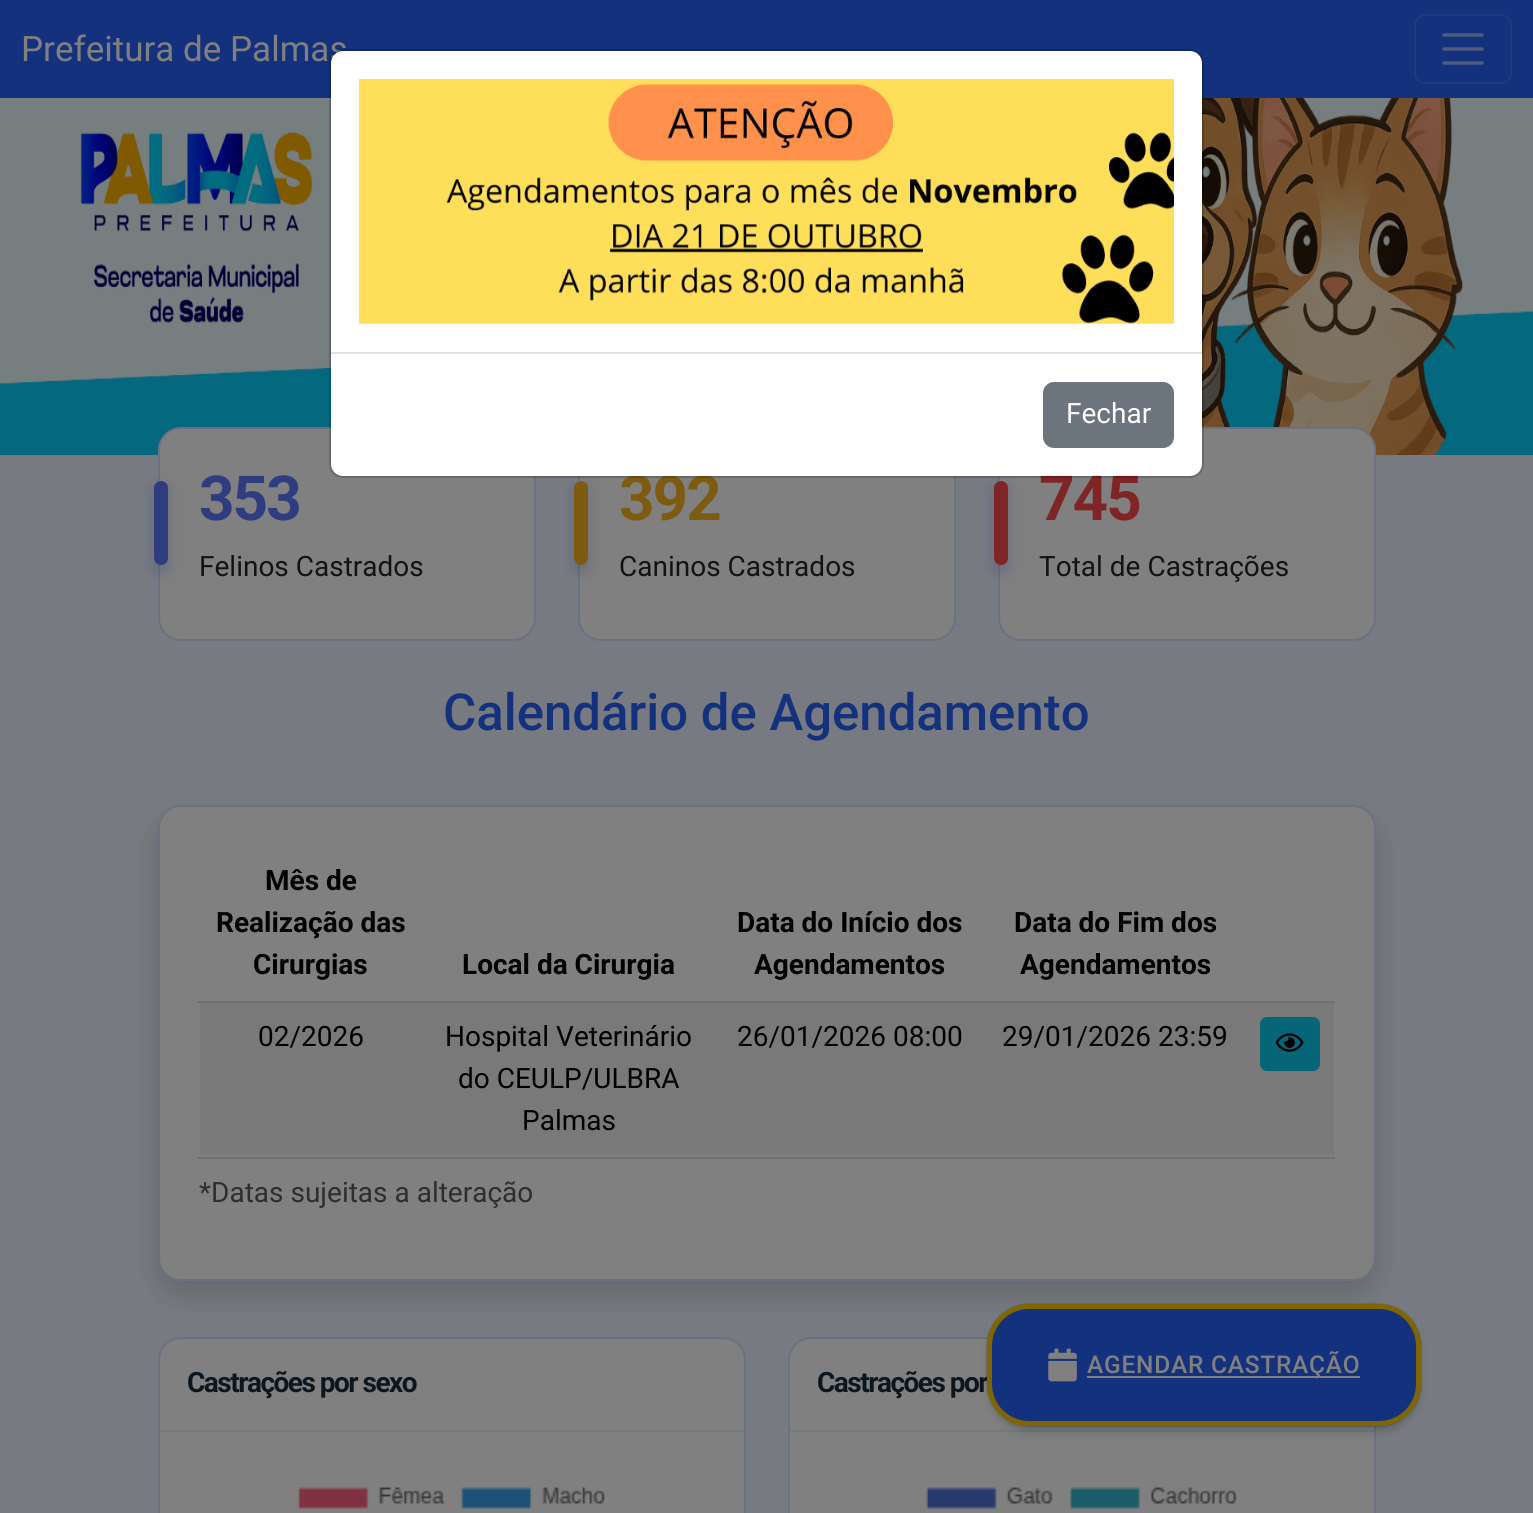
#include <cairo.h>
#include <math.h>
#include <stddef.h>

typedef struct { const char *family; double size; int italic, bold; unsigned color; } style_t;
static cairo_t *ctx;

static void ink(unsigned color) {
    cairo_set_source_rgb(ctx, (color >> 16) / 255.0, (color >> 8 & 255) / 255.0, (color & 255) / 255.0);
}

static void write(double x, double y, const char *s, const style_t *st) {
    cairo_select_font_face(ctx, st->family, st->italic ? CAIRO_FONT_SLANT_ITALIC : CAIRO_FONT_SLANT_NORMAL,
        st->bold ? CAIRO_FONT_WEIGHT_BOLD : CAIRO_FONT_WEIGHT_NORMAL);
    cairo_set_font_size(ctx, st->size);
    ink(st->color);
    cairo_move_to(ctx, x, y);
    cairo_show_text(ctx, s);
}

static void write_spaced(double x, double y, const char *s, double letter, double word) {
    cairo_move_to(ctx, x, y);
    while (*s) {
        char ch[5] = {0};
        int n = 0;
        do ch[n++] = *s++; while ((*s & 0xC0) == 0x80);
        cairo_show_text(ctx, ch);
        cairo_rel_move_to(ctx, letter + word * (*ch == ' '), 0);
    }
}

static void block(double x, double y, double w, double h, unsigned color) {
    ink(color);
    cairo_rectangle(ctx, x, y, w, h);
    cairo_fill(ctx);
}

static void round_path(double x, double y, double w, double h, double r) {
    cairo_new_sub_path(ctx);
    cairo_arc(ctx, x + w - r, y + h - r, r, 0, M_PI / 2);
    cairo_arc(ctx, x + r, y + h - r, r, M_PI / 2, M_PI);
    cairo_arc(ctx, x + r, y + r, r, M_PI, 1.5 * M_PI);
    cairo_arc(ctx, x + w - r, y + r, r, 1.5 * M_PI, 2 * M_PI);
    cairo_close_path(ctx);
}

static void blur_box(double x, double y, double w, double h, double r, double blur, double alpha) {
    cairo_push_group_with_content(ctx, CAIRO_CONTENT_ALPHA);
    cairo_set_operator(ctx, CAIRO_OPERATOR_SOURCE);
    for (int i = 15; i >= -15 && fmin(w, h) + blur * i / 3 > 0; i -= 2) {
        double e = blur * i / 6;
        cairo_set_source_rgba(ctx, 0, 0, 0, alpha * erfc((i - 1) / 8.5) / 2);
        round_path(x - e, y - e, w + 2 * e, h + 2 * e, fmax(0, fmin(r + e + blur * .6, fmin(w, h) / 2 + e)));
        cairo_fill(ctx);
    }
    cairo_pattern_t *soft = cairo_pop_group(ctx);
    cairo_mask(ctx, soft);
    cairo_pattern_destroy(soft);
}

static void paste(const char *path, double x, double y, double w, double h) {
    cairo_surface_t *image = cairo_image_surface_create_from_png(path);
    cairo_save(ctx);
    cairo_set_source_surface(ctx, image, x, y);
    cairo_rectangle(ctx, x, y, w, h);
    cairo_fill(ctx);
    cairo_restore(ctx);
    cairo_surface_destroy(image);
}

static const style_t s1 = {"Roboto", 35, 0, 0, 0x808080};
static const style_t s2 = {"Roboto", 28, 0, 0, 0xffffff};
static const style_t s3 = {"Roboto", 28, 0, 0, 0x111315};
static const style_t s4 = {"Roboto Medium", 50.9, 0, 0, 0x14317e};
static const style_t s5 = {"Roboto", 28, 0, 1, 0x000000};
static const style_t s6 = {"Roboto", 28, 0, 0, 0x000000};
static const style_t s7 = {"Roboto", 28, 0, 0, 0x2d2e30};

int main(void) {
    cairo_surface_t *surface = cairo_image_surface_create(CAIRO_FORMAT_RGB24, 1533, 1513);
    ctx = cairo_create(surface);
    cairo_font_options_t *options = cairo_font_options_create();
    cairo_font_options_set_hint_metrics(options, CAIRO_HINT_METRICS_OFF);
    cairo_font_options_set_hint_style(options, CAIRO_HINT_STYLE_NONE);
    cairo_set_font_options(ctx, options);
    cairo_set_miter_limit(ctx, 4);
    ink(0x777a80);
    cairo_paint(ctx);
    block(0, 0, 1533, 98, 0x14317e);
    write(21, 61, "Prefeitura de Palmas", &s1);
    round_path(1415, 15, 96, 68, 10);
    ink(0x1f397e);
    cairo_stroke(ctx);
    cairo_new_path(ctx);
    cairo_move_to(ctx, 1444, 35);
    cairo_line_to(ctx, 1482, 35);
    cairo_move_to(ctx, 1444, 49);
    cairo_line_to(ctx, 1482, 49);
    cairo_move_to(ctx, 1444, 63);
    cairo_line_to(ctx, 1482, 63);
    ink(0x4f5c7f);
    cairo_set_line_width(ctx, 3.5);
    cairo_set_line_cap(ctx, CAIRO_LINE_CAP_ROUND);
    cairo_stroke(ctx);
    paste("pic1.png", 0, 98, 1533, 357);
    ink(0x808080);
    round_path(159, 428, 376, 212, 22);
    cairo_fill_preserve(ctx);
    ink(0x6b7180);
    cairo_set_line_width(ctx, 2);
    cairo_set_line_cap(ctx, CAIRO_LINE_CAP_BUTT);
    cairo_stroke(ctx);
    ink(0x808080);
    round_path(579, 428, 376, 212, 22);
    cairo_fill_preserve(ctx);
    ink(0x6b7180);
    cairo_stroke(ctx);
    ink(0x2f3c80);
    blur_box(574, 487, 14, 84, 7, 7, 0.28);
    cairo_select_font_face(ctx, "Roboto", CAIRO_FONT_SLANT_NORMAL, CAIRO_FONT_WEIGHT_BOLD);
    cairo_set_font_size(ctx, 62);
    ink(0x7d5c11);
    write_spaced(619, 520, "392", -2, 0);
    ink(0x808080);
    round_path(999, 428, 376, 212, 22);
    cairo_fill_preserve(ctx);
    ink(0x6b7180);
    cairo_stroke(ctx);
    ink(0x2f3c80);
    blur_box(994, 487, 14, 84, 7, 7, 0.28);
    ink(0xffffff);
    round_path(331, 51, 871, 425, 12);
    cairo_fill(ctx);
    ink(0x802525);
    write_spaced(1039, 520, "745", -2, 0);
    round_path(330, 50, 873, 427, 13);
    cairo_set_source_rgba(ctx, 0, 0, 0, 0.18);
    cairo_stroke(ctx);
    paste("pic2.png", 359, 79, 815, 245);
    block(331, 352, 871, 2, 0xdee2e6);
    ink(0x6c757d);
    round_path(1044, 383, 129, 64, 10);
    cairo_fill_preserve(ctx);
    cairo_stroke(ctx);
    write(1066, 423, "Fechar", &s2);
    ink(0x2f3c80);
    blur_box(154, 487, 14, 84, 7, 7, 0.28);
    ink(0x2f3c80);
    round_path(154, 481, 14, 84, 7);
    cairo_fill(ctx);
    cairo_select_font_face(ctx, "Roboto", CAIRO_FONT_SLANT_NORMAL, CAIRO_FONT_WEIGHT_BOLD);
    cairo_set_font_size(ctx, 62);
    write_spaced(199, 520, "353", -2, 0);
    write(199, 576, "Felinos Castrados", &s3);
    ink(0x7d5c11);
    round_path(574, 481, 14, 84, 7);
    cairo_fill(ctx);
    write(619, 576, "Caninos Castrados", &s3);
    ink(0x802525);
    round_path(994, 481, 14, 84, 7);
    cairo_fill(ctx);
    write(1039, 576, "Total de Castrações", &s3);
    write(443, 730, "Calendário de Agendamento", &s4);
    ink(0x000000);
    blur_box(158, 819, 1218, 476, 23, 14, 0.15);
    ink(0x808080);
    round_path(159, 806, 1216, 474, 22);
    cairo_fill_preserve(ctx);
    ink(0x6b7180);
    cairo_stroke(ctx);
    write(265, 890, "Mês de", &s5);
    write(216, 932, "Realização das", &s5);
    write(253, 974, "Cirurgias", &s5);
    write(462, 974, "Local da Cirurgia", &s5);
    write(737, 932, "Data do Início dos", &s5);
    write(754, 974, "Agendamentos", &s5);
    write(1014, 932, "Data do Fim dos", &s5);
    write(1020, 974, "Agendamentos", &s5);
    block(198, 1001, 1137, 2, 0x6f7173);
    block(198, 1157, 1137, 2, 0x6f7173);
    block(200, 1003, 1134, 152, 0x797979);
    ink(0x076578);
    round_path(1261, 1018, 58, 52, 6);
    cairo_fill_preserve(ctx);
    cairo_stroke(ctx);
    paste("pic3.png", 1275, 1033, 29, 19);
    write(258, 1046, "02/2026", &s6);
    write(445, 1046, "Hospital Veterinário", &s6);
    write(458, 1088, "do CEULP/ULBRA", &s6);
    write(522, 1130, "Palmas", &s6);
    write(737, 1046, "26/01/2026 08:00", &s6);
    write(1002, 1046, "29/01/2026 23:59", &s6);
    write(199, 1202, "*Datas sujeitas a alteração", &s7);
    ink(0x808080);
    round_path(789, 1338, 586, 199, 22);
    cairo_fill_preserve(ctx);
    ink(0x6b7180);
    cairo_stroke(ctx);
    cairo_set_source_rgba(ctx, 0.431, 0.459, 0.482, 0.6);
    cairo_rectangle(ctx, 789, 1430, 585, 2);
    cairo_fill(ctx);
    ink(0x000000);
    blur_box(991, 1314, 427, 116, 39, 5, 0.25);
    blur_box(987, 1304, 434, 122, 42, 1, 0.31);
    cairo_select_font_face(ctx, "Roboto", CAIRO_FONT_SLANT_NORMAL, CAIRO_FONT_WEIGHT_BOLD);
    ink(0x0c161f);
    write_spaced(817, 1392, "Castrações por", -1.5, 0);
    ink(0x14317e);
    round_path(989.5, 1306.5, 429, 117, 39.5);
    cairo_fill_preserve(ctx);
    ink(0x806600);
    cairo_set_line_width(ctx, 5);
    cairo_stroke(ctx);
    paste("pic4.png", 1048, 1348, 29, 34);
    block(1087, 1376, 273, 2, 0x808080);
    cairo_select_font_face(ctx, "Roboto Medium", CAIRO_FONT_SLANT_NORMAL, CAIRO_FONT_WEIGHT_NORMAL);
    cairo_set_font_size(ctx, 24.5);
    write_spaced(1087, 1373, "AGENDAR CASTRAÇÃO", 0.75, 0);
    round_path(159, 1338, 586, 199, 22);
    cairo_fill_preserve(ctx);
    ink(0x6b7180);
    cairo_set_line_width(ctx, 2);
    cairo_stroke(ctx);
    cairo_set_source_rgba(ctx, 0.431, 0.459, 0.482, 0.6);
    cairo_rectangle(ctx, 159, 1430, 585, 2);
    cairo_fill(ctx);
    cairo_select_font_face(ctx, "Roboto", CAIRO_FONT_SLANT_NORMAL, CAIRO_FONT_WEIGHT_BOLD);
    cairo_set_font_size(ctx, 28);
    ink(0x0c161f);
    write_spaced(187, 1392, "Castrações por sexo", -1.5, 0);
    paste("pic5.png", 297, 1487, 309, 23);
    paste("pic6.png", 925, 1487, 313, 23);
    cairo_surface_write_to_png(surface, "screenshot.png");
    cairo_font_options_destroy(options);
    cairo_destroy(ctx);
    cairo_surface_destroy(surface);
    return 0;
}
